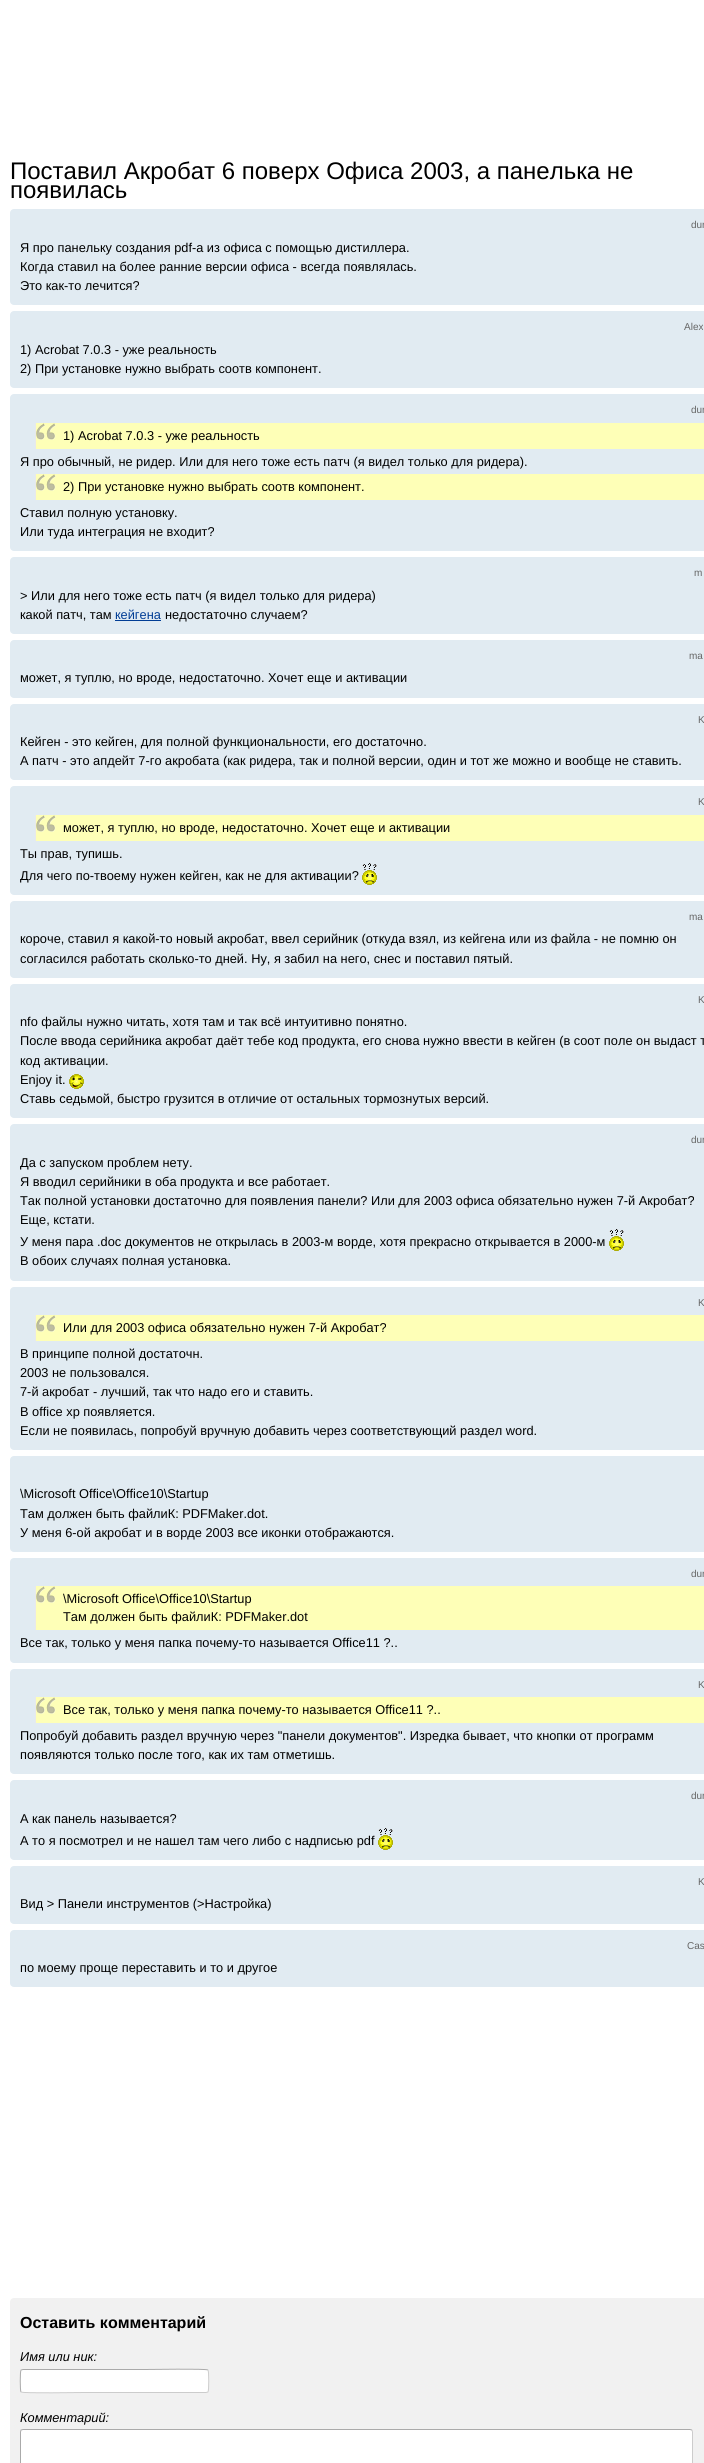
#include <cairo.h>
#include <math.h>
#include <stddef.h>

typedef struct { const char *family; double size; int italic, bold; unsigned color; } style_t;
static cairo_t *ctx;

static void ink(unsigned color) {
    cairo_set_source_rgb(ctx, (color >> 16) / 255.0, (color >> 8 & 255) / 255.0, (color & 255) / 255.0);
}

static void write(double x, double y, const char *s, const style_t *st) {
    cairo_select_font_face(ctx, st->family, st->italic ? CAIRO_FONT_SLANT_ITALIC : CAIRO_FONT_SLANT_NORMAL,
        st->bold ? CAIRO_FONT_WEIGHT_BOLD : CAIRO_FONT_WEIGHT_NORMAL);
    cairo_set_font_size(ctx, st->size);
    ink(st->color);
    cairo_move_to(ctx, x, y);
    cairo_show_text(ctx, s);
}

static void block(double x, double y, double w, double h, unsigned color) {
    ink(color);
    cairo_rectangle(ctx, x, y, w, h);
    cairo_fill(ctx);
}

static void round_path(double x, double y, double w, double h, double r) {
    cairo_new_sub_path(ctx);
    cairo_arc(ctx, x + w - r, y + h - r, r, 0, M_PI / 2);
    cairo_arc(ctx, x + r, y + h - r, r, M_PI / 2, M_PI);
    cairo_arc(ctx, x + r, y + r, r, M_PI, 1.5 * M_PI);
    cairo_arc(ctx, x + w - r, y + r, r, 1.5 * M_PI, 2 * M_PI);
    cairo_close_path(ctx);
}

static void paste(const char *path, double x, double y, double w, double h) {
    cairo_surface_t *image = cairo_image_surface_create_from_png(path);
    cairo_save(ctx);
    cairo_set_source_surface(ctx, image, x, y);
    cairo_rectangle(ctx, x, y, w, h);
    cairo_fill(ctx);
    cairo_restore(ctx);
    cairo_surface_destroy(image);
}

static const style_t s1 = {"Liberation Sans", 24, 0, 0, 0x000000};
static const style_t s2 = {"Liberation Sans", 10, 0, 0, 0x666666};
static const style_t s3 = {"Liberation Sans", 12.8, 0, 0, 0x000000};
static const style_t s4 = {"Liberation Sans", 12.8, 0, 0, 0x013d95};
static const style_t s5 = {"Liberation Sans", 16, 0, 1, 0x000000};
static const style_t s6 = {"Liberation Sans", 12.8, 1, 0, 0x000000};

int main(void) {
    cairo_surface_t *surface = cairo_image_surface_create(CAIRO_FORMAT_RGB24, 704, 2463);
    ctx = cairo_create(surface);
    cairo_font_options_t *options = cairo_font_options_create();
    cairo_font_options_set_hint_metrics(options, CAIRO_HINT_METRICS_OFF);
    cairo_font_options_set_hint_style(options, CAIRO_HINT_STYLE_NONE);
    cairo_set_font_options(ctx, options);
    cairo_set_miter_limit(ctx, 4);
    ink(0xffffff);
    cairo_paint(ctx);
    write(10, 179, "Поставил Акробат 6 поверх Офиса 2003, а панелька не", &s1);
    write(10, 198, "появилась", &s1);
    ink(0xe1ebf2);
    round_path(10, 209, 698, 96, 4);
    cairo_fill(ctx);
    write(691, 228, "dur", &s2);
    write(20, 252, "Я про панельку создания pdf-а из офиса с помощью дистиллера.", &s3);
    write(20, 271, "Когда ставил на более ранние версии офиса - всегда появлялась.", &s3);
    write(20, 290, "Это как-то лечится?", &s3);
    ink(0xe1ebf2);
    round_path(10, 311, 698, 77, 4);
    cairo_fill(ctx);
    write(684, 330, "Alex", &s2);
    write(20, 354, "1) Acrobat 7.0.3 - уже реальность", &s3);
    write(20, 373, "2) При установке нужно выбрать соотв компонент.", &s3);
    ink(0xe1ebf2);
    round_path(10, 394, 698, 157, 4);
    cairo_fill(ctx);
    write(691, 413, "dur", &s2);
    block(36, 423, 668, 26, 0xfeffb7);
    paste("pic1.png", 36, 423, 20, 17);
    block(35, 423, 1, 26, 0xe9e9e9);
    write(63, 440, "1) Acrobat 7.0.3 - уже реальность", &s3);
    write(20, 466, "Я про обычный, не ридер. Или для него тоже есть патч (я видел только для ридера).", &s3);
    block(36, 474, 668, 26, 0xfeffb7);
    paste("pic1.png", 36, 474, 20, 17);
    block(35, 474, 1, 26, 0xe9e9e9);
    write(63, 491, "2) При установке нужно выбрать соотв компонент.", &s3);
    write(20, 517, "Ставил полную установку.", &s3);
    write(20, 536, "Или туда интеграция не входит?", &s3);
    ink(0xe1ebf2);
    round_path(10, 557, 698, 77, 4);
    cairo_fill(ctx);
    write(694, 576, "m", &s2);
    write(20, 600, "> Или для него тоже есть патч (я видел только для ридера)", &s3);
    write(20, 619, "какой патч, там", &s3);
    write(115, 619, "кейгена", &s4);
    block(115, 620, 46, 1, 0x013d95);
    write(165, 619, "недостаточно случаем?", &s3);
    ink(0xe1ebf2);
    round_path(10, 640, 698, 58, 4);
    cairo_fill(ctx);
    write(689, 659, "ma", &s2);
    write(20, 682, "может, я туплю, но вроде, недостаточно. Хочет еще и активации", &s3);
    ink(0xe1ebf2);
    round_path(10, 704, 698, 76, 4);
    cairo_fill(ctx);
    write(698, 723, "K", &s2);
    write(20, 746, "Кейген - это кейген, для полной функциональности, его достаточно.", &s3);
    write(20, 765, "А патч - это апдейт 7-го акробата (как ридера, так и полной версии, один и тот же можно и вообще не ставить.", &s3);
    ink(0xe1ebf2);
    round_path(10, 786, 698, 109, 4);
    cairo_fill(ctx);
    write(698, 805, "K", &s2);
    block(36, 815, 668, 26, 0xfeffb7);
    paste("pic1.png", 36, 815, 20, 17);
    block(35, 815, 1, 26, 0xe9e9e9);
    write(63, 832, "может, я туплю, но вроде, недостаточно. Хочет еще и активации", &s3);
    write(20, 858, "Ты прав, тупишь.", &s3);
    write(20, 880, "Для чего по-твоему нужен кейген, как не для активации?", &s3);
    paste("pic2.png", 362, 863, 15, 22);
    ink(0xe1ebf2);
    round_path(10, 901, 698, 77, 4);
    cairo_fill(ctx);
    write(689, 920, "ma", &s2);
    write(20, 943, "короче, ставил я какой-то новый акробат, ввел серийник (откуда взял, из кейгена или из файла - не помню он", &s3);
    write(20, 963, "согласился работать сколько-то дней. Ну, я забил на него, снес и поставил пятый.", &s3);
    ink(0xe1ebf2);
    round_path(10, 984, 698, 134, 4);
    cairo_fill(ctx);
    write(698, 1003, "K", &s2);
    write(20, 1026, "nfo файлы нужно читать, хотя там и так всё интуитивно понятно.", &s3);
    write(20, 1045, "После ввода серийника акробат даёт тебе код продукта, его снова нужно ввести в кейген (в соот поле он выдаст т", &s3);
    write(20, 1065, "код активации.", &s3);
    write(20, 1084, "Enjoy it.", &s3);
    paste("pic3.png", 69, 1074, 15, 15);
    write(20, 1103, "Ставь седьмой, быстро грузится в отличие от остальных тормознутых версий.", &s3);
    ink(0xe1ebf2);
    round_path(10, 1124, 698, 157, 4);
    cairo_fill(ctx);
    write(691, 1143, "dur", &s2);
    write(20, 1167, "Да с запуском проблем нету.", &s3);
    write(20, 1186, "Я вводил серийники в оба продукта и все работает.", &s3);
    write(20, 1205, "Так полной установки достаточно для появления панели? Или для 2003 офиса обязательно нужен 7-й Акробат?", &s3);
    write(20, 1224, "Еще, кстати.", &s3);
    write(20, 1246, "У меня пара .doc документов не открылась в 2003-м ворде, хотя прекрасно открывается в 2000-м", &s3);
    paste("pic2.png", 609, 1229, 15, 22);
    write(20, 1265, "В обоих случаях полная установка.", &s3);
    ink(0xe1ebf2);
    round_path(10, 1287, 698, 163, 4);
    cairo_fill(ctx);
    write(698, 1306, "K", &s2);
    block(36, 1315, 668, 26, 0xfeffb7);
    paste("pic1.png", 36, 1315, 20, 17);
    block(35, 1315, 1, 26, 0xe9e9e9);
    write(63, 1332, "Или для 2003 офиса обязательно нужен 7-й Акробат?", &s3);
    write(20, 1358, "В принципе полной достаточн.", &s3);
    write(20, 1377, "2003 не пользовался.", &s3);
    write(20, 1396, "7-й акробат - лучший, так что надо его и ставить.", &s3);
    write(20, 1416, "В office xp появляется.", &s3);
    write(20, 1435, "Если не появилась, попробуй вручную добавить через соответствующий раздел word.", &s3);
    ink(0xe1ebf2);
    round_path(10, 1456, 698, 96, 4);
    cairo_fill(ctx);
    write(20, 1498, "\\Microsoft Office\\Office10\\Startup", &s3);
    write(20, 1518, "Там должен быть файлиК: PDFMaker.dot.", &s3);
    write(20, 1537, "У меня 6-ой акробат и в ворде 2003 все иконки отображаются.", &s3);
    ink(0xe1ebf2);
    round_path(10, 1558, 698, 105, 4);
    cairo_fill(ctx);
    write(691, 1577, "dur", &s2);
    block(36, 1586, 668, 44, 0xfeffb7);
    paste("pic1.png", 36, 1586, 20, 17);
    block(35, 1586, 1, 44, 0xe9e9e9);
    write(63, 1603, "\\Microsoft Office\\Office10\\Startup", &s3);
    write(63, 1621, "Там должен быть файлиК: PDFMaker.dot", &s3);
    write(20, 1647, "Все так, только у меня папка почему-то называется Office11 ?..", &s3);
    ink(0xe1ebf2);
    round_path(10, 1669, 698, 105, 4);
    cairo_fill(ctx);
    write(698, 1688, "K", &s2);
    block(36, 1697, 668, 26, 0xfeffb7);
    paste("pic1.png", 36, 1697, 20, 17);
    block(35, 1697, 1, 26, 0xe9e9e9);
    write(63, 1714, "Все так, только у меня папка почему-то называется Office11 ?..", &s3);
    write(20, 1740, "Попробуй добавить раздел вручную через \"панели документов\". Изредка бывает, что кнопки от программ", &s3);
    write(20, 1759, "появляются только после того, как их там отметишь.", &s3);
    ink(0xe1ebf2);
    round_path(10, 1780, 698, 80, 4);
    cairo_fill(ctx);
    write(691, 1799, "dur", &s2);
    write(20, 1823, "А как панель называется?", &s3);
    write(20, 1845, "А то я посмотрел и не нашел там чего либо с надписью pdf", &s3);
    paste("pic2.png", 378, 1828, 15, 22);
    ink(0xe1ebf2);
    round_path(10, 1866, 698, 58, 4);
    cairo_fill(ctx);
    write(698, 1885, "K", &s2);
    write(20, 1908, "Вид > Панели инструментов (>Настройка)", &s3);
    ink(0xe1ebf2);
    round_path(10, 1930, 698, 57, 4);
    cairo_fill(ctx);
    write(687, 1949, "Cas", &s2);
    write(20, 1972, "по моему проще переставить и то и другое", &s3);
    ink(0xf1f1f1);
    round_path(10, 2298, 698, 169, 4);
    cairo_fill(ctx);
    write(20, 2328, "Оставить комментарий", &s5);
    write(20, 2361, "Имя или ник:", &s6);
    ink(0xffffff);
    round_path(20, 2369, 189, 24, 3);
    cairo_fill(ctx);
    cairo_new_path(ctx);
    cairo_move_to(ctx, 208, 2370);
    cairo_curve_to(ctx, 209, 2371.5, 209, 2390.5, 208, 2392);
    cairo_line_to(ctx, 206, 2392.5);
    cairo_line_to(ctx, 84, 2392.5);
    cairo_curve_to(ctx, 80, 2392.5, 23, 2393.5, 21, 2392);
    ink(0xcccccc);
    cairo_set_line_width(ctx, 1);
    cairo_stroke(ctx);
    cairo_new_path(ctx);
    cairo_move_to(ctx, 21, 2392);
    cairo_curve_to(ctx, 20, 2390.5, 20, 2371.5, 21, 2370);
    cairo_line_to(ctx, 23, 2369.5);
    cairo_line_to(ctx, 145, 2369.5);
    cairo_curve_to(ctx, 149, 2369.5, 206, 2368.5, 208, 2370);
    ink(0xaaaaaa);
    cairo_stroke(ctx);
    write(20, 2422, "Комментарий:", &s6);
    ink(0xffffff);
    round_path(20, 2429, 673, 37, 3);
    cairo_fill(ctx);
    cairo_new_path(ctx);
    cairo_move_to(ctx, 692, 2430);
    cairo_line_to(ctx, 692.5, 2432);
    cairo_line_to(ctx, 692.5, 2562);
    cairo_line_to(ctx, 692, 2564);
    cairo_line_to(ctx, 690, 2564.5);
    cairo_line_to(ctx, 23, 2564.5);
    cairo_line_to(ctx, 21, 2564);
    ink(0xcccccc);
    cairo_stroke(ctx);
    cairo_new_path(ctx);
    cairo_move_to(ctx, 21, 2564);
    cairo_line_to(ctx, 20.5, 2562);
    cairo_line_to(ctx, 20.5, 2432);
    cairo_line_to(ctx, 21, 2430);
    cairo_line_to(ctx, 23, 2429.5);
    cairo_line_to(ctx, 690, 2429.5);
    cairo_line_to(ctx, 692, 2430);
    ink(0xaaaaaa);
    cairo_stroke(ctx);
    cairo_surface_write_to_png(surface, "screenshot.png");
    cairo_font_options_destroy(options);
    cairo_destroy(ctx);
    cairo_surface_destroy(surface);
    return 0;
}
